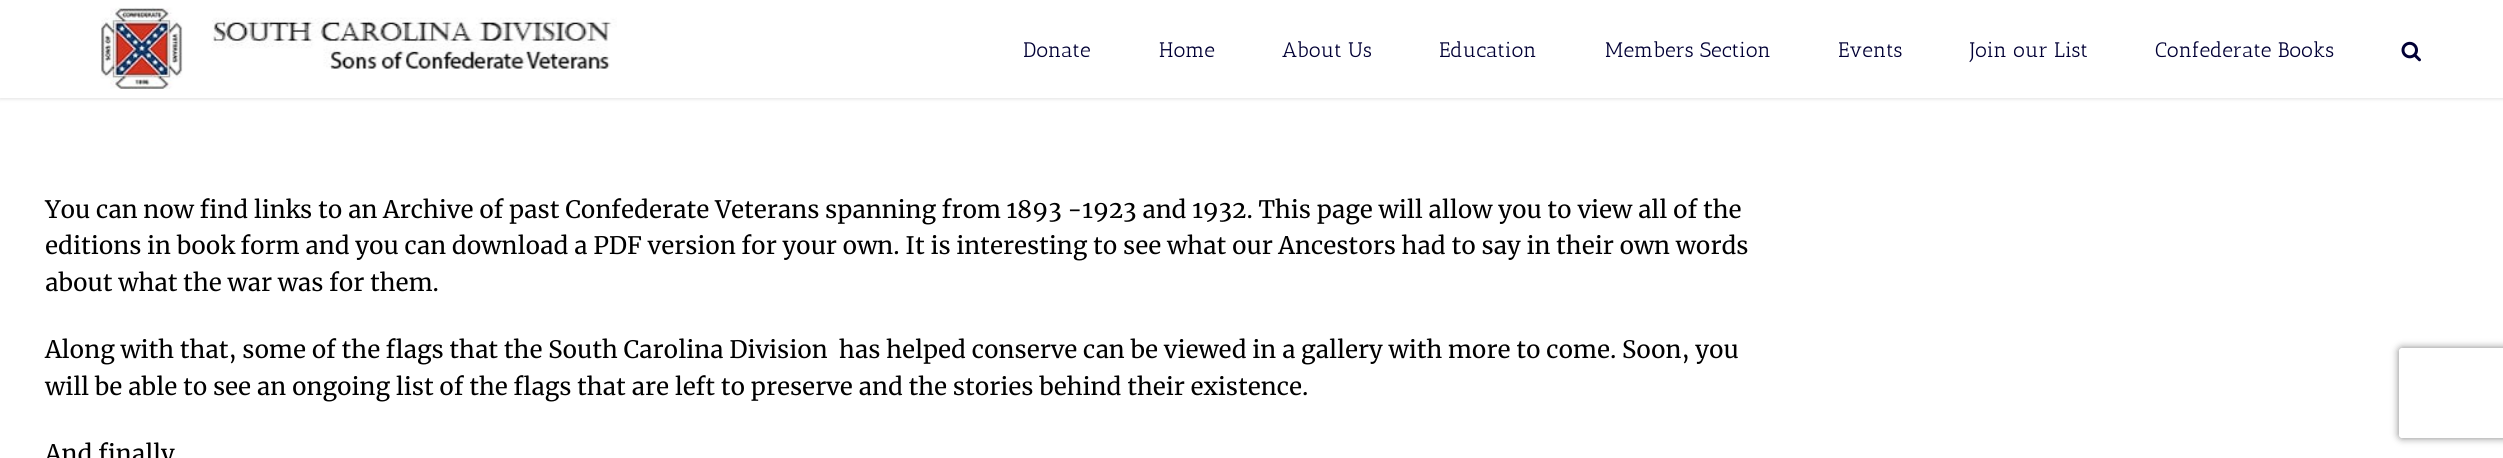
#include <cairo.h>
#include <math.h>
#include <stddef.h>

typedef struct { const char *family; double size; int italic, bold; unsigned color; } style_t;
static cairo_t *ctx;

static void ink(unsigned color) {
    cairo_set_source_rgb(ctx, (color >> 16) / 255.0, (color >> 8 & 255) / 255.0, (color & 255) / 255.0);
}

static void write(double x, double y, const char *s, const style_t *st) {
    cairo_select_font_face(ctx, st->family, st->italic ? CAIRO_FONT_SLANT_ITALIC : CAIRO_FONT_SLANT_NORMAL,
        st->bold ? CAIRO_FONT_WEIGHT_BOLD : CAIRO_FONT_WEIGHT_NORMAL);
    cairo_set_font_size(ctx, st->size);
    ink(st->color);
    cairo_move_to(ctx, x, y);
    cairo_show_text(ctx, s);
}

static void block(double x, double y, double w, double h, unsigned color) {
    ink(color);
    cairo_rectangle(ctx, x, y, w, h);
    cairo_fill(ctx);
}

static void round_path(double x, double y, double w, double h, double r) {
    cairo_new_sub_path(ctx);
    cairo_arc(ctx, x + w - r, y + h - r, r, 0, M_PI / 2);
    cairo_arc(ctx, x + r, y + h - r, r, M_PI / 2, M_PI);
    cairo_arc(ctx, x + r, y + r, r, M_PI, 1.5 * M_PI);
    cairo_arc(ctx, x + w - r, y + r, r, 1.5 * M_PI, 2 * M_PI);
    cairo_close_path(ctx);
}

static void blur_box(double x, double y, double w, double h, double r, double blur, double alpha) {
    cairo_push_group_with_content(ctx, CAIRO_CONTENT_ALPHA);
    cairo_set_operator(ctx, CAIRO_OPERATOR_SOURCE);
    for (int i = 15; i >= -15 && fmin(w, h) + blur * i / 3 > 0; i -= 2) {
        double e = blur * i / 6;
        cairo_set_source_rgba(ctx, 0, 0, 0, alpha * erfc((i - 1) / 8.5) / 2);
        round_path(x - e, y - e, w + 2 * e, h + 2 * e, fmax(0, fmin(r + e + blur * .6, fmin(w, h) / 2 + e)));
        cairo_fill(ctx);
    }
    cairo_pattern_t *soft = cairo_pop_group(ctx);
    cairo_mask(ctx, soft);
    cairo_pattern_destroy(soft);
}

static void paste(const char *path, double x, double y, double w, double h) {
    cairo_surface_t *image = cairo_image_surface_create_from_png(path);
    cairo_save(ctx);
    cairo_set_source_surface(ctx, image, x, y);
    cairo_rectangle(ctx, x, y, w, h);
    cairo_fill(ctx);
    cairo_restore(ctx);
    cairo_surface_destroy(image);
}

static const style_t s1 = {"Antic Slab", 21, 0, 0, 0x010035};
static const style_t s2 = {"Merriweather", 24, 0, 0, 0x000000};

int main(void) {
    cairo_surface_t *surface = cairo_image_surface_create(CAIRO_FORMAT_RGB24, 2503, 458);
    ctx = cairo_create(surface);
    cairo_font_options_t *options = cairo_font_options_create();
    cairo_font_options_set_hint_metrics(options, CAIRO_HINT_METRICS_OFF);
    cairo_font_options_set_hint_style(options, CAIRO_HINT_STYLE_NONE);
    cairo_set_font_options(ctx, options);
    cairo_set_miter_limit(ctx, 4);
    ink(0xffffff);
    cairo_paint(ctx);
    ink(0x000000);
    blur_box(0, 2, 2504, 97, 0, 2, 0.12);
    block(0, 0, 2503, 98, 0xffffff);
    paste("pic1.png", 100, 7, 517, 82);
    write(1023, 57, "Donate", &s1);
    write(1159, 57, "Home", &s1);
    write(1282, 57, "About Us", &s1);
    write(1439, 57, "Education", &s1);
    write(1605, 57, "Members Section", &s1);
    write(1838, 57, "Events", &s1);
    write(1970, 57, "Join our List", &s1);
    write(2155, 57, "Confederate Books", &s1);
    paste("pic2.png", 2401, 41, 20, 21);
    write(45, 218, "You can now find links to an Archive of past Confederate Veterans spanning from 1893 -1923 and 1932. This page will allow you to view all of the", &s2);
    write(45, 254, "editions in book form and you can download a PDF version for your own. It is interesting to see what our Ancestors had to say in their own words", &s2);
    write(45, 291, "about what the war was for them.", &s2);
    write(45, 358, "Along with that, some of the flags that the South Carolina Division  has helped conserve can be viewed in a gallery with more to come. Soon, you", &s2);
    write(45, 395, "will be able to see an ongoing list of the flags that are left to preserve and the stories behind their existence.", &s2);
    write(45, 462, "And finally", &s2);
    cairo_save(ctx);
    cairo_set_fill_rule(ctx, CAIRO_FILL_RULE_EVEN_ODD);
    cairo_new_path(ctx);
    cairo_move_to(ctx, 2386, 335);
    cairo_line_to(ctx, 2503, 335);
    cairo_line_to(ctx, 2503, 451);
    cairo_line_to(ctx, 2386, 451);
    cairo_close_path(ctx);
    cairo_move_to(ctx, 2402, 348);
    cairo_line_to(ctx, 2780, 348);
    cairo_curve_to(ctx, 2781.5, 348, 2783, 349.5, 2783, 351);
    cairo_line_to(ctx, 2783, 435);
    cairo_curve_to(ctx, 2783, 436.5, 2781.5, 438, 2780, 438);
    cairo_line_to(ctx, 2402, 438);
    cairo_curve_to(ctx, 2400.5, 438, 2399, 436.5, 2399, 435);
    cairo_line_to(ctx, 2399, 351);
    cairo_curve_to(ctx, 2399, 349.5, 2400.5, 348, 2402, 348);
    cairo_close_path(ctx);
    cairo_clip(ctx);
    ink(0x808080);
    blur_box(2399, 348, 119, 90, 3, 4, 1);
    cairo_restore(ctx);
    cairo_surface_write_to_png(surface, "screenshot.png");
    cairo_font_options_destroy(options);
    cairo_destroy(ctx);
    cairo_surface_destroy(surface);
    return 0;
}
